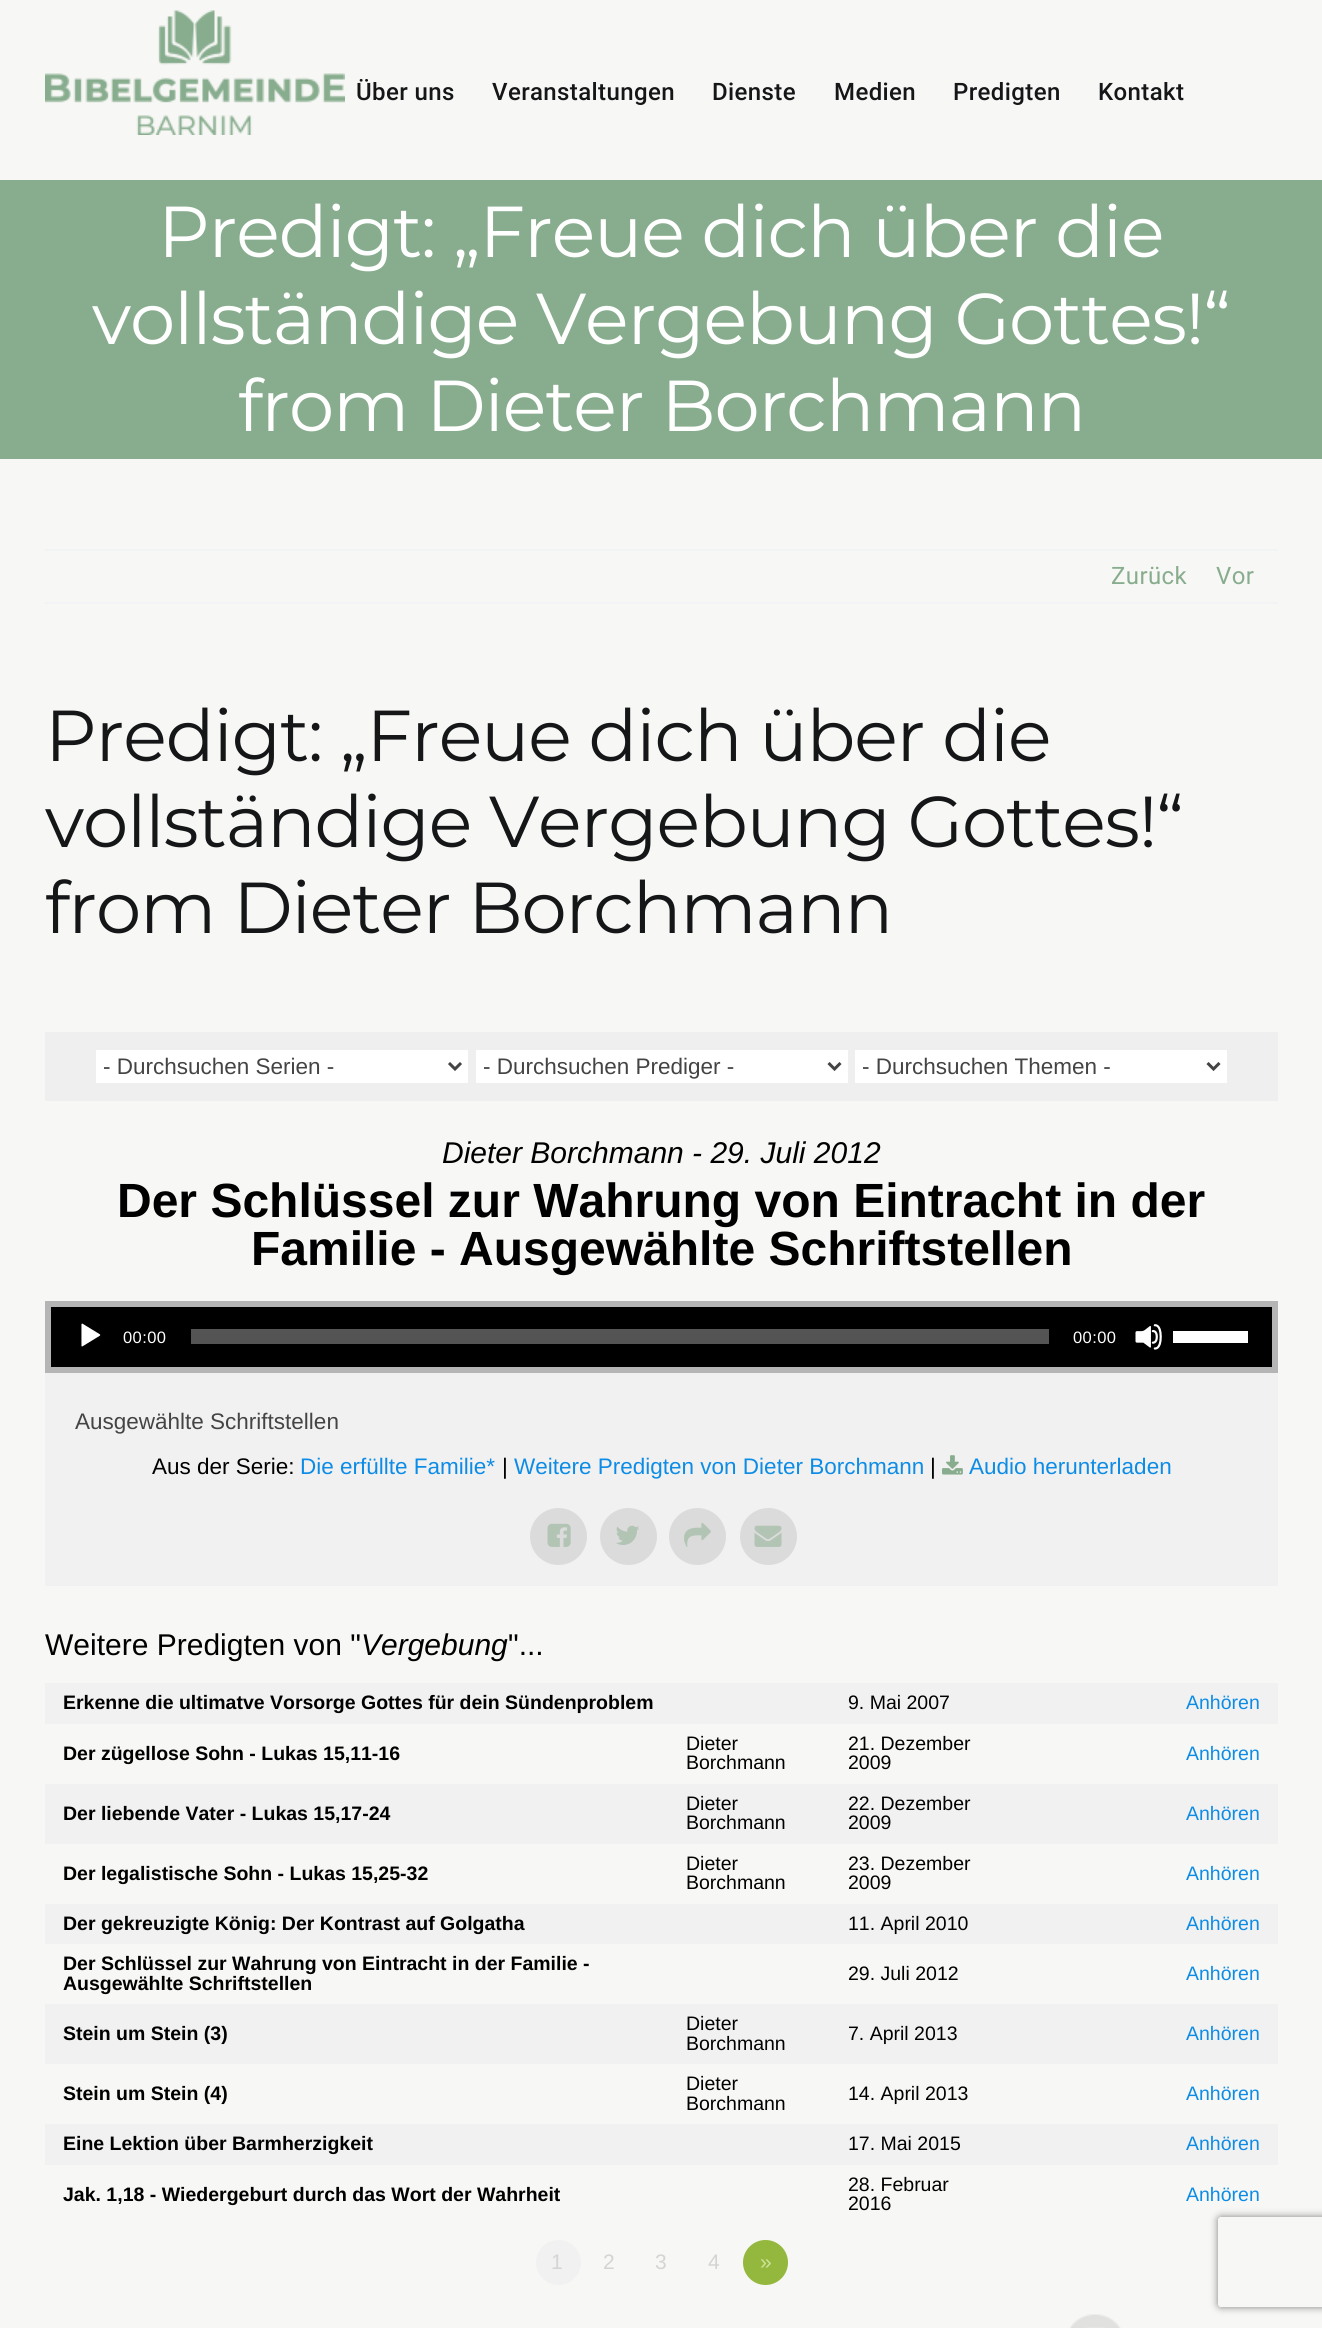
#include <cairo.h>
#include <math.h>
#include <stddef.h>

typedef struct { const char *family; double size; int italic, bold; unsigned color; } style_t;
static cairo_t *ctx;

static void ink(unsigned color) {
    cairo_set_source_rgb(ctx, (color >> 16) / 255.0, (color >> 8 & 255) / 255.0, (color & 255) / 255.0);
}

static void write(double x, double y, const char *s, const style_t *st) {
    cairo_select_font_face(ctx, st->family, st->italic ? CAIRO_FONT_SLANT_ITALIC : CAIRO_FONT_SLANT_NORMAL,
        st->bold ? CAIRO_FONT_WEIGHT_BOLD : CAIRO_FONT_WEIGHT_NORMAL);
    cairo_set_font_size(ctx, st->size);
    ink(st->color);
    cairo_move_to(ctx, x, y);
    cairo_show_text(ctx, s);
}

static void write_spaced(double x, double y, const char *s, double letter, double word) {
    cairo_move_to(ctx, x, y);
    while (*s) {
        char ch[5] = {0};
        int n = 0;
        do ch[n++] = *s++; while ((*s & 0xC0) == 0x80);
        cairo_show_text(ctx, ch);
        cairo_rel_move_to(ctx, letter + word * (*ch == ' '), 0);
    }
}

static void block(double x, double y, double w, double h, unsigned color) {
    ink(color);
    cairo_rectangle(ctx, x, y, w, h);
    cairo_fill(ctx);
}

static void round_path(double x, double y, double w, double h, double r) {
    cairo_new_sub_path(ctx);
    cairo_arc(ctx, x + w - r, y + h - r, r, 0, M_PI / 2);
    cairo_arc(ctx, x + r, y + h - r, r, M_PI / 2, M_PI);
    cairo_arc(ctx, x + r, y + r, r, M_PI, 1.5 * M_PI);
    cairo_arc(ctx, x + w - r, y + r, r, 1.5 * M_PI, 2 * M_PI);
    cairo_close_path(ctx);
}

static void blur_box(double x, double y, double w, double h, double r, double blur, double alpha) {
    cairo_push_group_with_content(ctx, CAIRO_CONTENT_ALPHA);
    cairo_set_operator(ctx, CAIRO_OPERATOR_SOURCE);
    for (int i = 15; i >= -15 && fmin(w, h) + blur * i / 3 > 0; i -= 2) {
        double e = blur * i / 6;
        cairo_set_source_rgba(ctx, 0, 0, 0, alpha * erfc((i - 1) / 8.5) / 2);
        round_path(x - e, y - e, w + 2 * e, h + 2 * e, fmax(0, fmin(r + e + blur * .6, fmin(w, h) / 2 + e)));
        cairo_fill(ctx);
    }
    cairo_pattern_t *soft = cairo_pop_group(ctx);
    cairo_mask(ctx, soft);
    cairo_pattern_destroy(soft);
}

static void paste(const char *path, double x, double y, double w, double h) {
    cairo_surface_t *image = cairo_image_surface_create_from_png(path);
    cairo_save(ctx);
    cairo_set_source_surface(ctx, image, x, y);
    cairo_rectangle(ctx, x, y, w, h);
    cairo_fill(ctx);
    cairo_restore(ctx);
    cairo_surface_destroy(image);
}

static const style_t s1 = {"Liberation Sans", 22.5, 0, 0, 0x444444};
static const style_t s2 = {"Liberation Sans", 30, 1, 0, 0x000000};
static const style_t s3 = {"Liberation Sans", 48, 0, 1, 0x000000};
static const style_t s4 = {"Liberation Sans", 22.5, 0, 0, 0x000000};
static const style_t s5 = {"Liberation Sans", 22.5, 0, 0, 0x0d8ce6};
static const style_t s6 = {"Liberation Sans", 30, 0, 0, 0x000000};
static const style_t s7 = {"Liberation Sans", 19.5, 0, 1, 0x000000};
static const style_t s8 = {"Liberation Sans", 19.5, 0, 0, 0x000000};
static const style_t s9 = {"Liberation Sans", 19.5, 0, 0, 0x0d8ce6};

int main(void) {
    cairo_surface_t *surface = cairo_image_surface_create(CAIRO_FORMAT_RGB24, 1322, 2328);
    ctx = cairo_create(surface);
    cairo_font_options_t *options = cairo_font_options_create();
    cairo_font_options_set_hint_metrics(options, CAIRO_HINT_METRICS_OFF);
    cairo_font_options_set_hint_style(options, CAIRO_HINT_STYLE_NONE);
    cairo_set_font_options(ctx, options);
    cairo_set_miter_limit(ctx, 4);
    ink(0xf7f7f5);
    cairo_paint(ctx);
    paste("pic1.png", 45, 10, 300, 125);
    cairo_select_font_face(ctx, "Roboto Medium", CAIRO_FONT_SLANT_NORMAL, CAIRO_FONT_WEIGHT_NORMAL);
    cairo_set_font_size(ctx, 24);
    ink(0x141617);
    write_spaced(356, 100, "Über uns", 0.4, 0);
    write_spaced(492, 100, "Veranstaltungen", 0.4, 0);
    write_spaced(712, 100, "Dienste", 0.4, 0);
    write_spaced(834, 100, "Medien", 0.4, 0);
    write_spaced(953, 100, "Predigten", 0.4, 0);
    write_spaced(1098, 100, "Kontakt", 0.4, 0);
    block(0, 180, 1322, 279, 0x88ad8e);
    cairo_select_font_face(ctx, "Montserrat", CAIRO_FONT_SLANT_NORMAL, CAIRO_FONT_WEIGHT_NORMAL);
    cairo_set_font_size(ctx, 72);
    ink(0xffffff);
    write_spaced(158, 257, "Predigt: „Freue dich über die", -1.1, 0);
    write_spaced(92, 344, "vollständige Vergebung Gottes!“", -1.1, 0);
    write_spaced(238, 431, "from Dieter Borchmann", -1.1, 0);
    block(45, 549, 1233, 2, 0xf2f3f5);
    block(45, 602, 1233, 2, 0xf2f3f5);
    cairo_select_font_face(ctx, "Roboto", CAIRO_FONT_SLANT_NORMAL, CAIRO_FONT_WEIGHT_NORMAL);
    cairo_set_font_size(ctx, 24);
    ink(0x88ad8e);
    write_spaced(1111, 584, "Zurück", 0.4, 0);
    write_spaced(1216, 584, "Vor", 0.4, 0);
    cairo_select_font_face(ctx, "Montserrat", CAIRO_FONT_SLANT_NORMAL, CAIRO_FONT_WEIGHT_NORMAL);
    cairo_set_font_size(ctx, 72);
    ink(0x141617);
    write_spaced(45, 761, "Predigt: „Freue dich über die", -1.1, 0);
    write_spaced(45, 847, "vollständige Vergebung Gottes!“", -1.1, 0);
    write_spaced(45, 933, "from Dieter Borchmann", -1.1, 0);
    block(45, 1032, 1233, 69, 0xefefef);
    block(96, 1050, 372, 33, 0xffffff);
    cairo_new_path(ctx);
    cairo_move_to(ctx, 449, 1063);
    cairo_line_to(ctx, 455, 1069);
    cairo_line_to(ctx, 461, 1063);
    ink(0x444444);
    cairo_set_line_width(ctx, 3);
    cairo_stroke(ctx);
    write(103, 1074, "- Durchsuchen Serien -", &s1);
    block(476, 1050, 372, 33, 0xffffff);
    cairo_new_path(ctx);
    cairo_move_to(ctx, 828.5, 1063);
    cairo_line_to(ctx, 834.5, 1069);
    cairo_line_to(ctx, 840.5, 1063);
    ink(0x444444);
    cairo_stroke(ctx);
    write(483, 1074, "- Durchsuchen Prediger -", &s1);
    block(855, 1050, 372, 33, 0xffffff);
    cairo_new_path(ctx);
    cairo_move_to(ctx, 1207.5, 1063);
    cairo_line_to(ctx, 1213.5, 1069);
    cairo_line_to(ctx, 1219.5, 1063);
    ink(0x444444);
    cairo_stroke(ctx);
    write(862, 1074, "- Durchsuchen Themen -", &s1);
    write(442, 1163, "Dieter Borchmann - 29. Juli 2012", &s2);
    write(117, 1217, "Der Schlüssel zur Wahrung von Eintracht in der", &s3);
    write(251, 1265, "Familie - Ausgewählte Schriftstellen", &s3);
    block(45, 1373, 1233, 213, 0xf1f1f1);
    block(45, 1301, 1233, 72, 0xb6b5b5);
    block(51, 1307, 1221, 60, 0x000000);
    paste("pic2.png", 81, 1323, 20, 24);
    cairo_select_font_face(ctx, "Liberation Sans", CAIRO_FONT_SLANT_NORMAL, CAIRO_FONT_WEIGHT_NORMAL);
    cairo_set_font_size(ctx, 16.5);
    ink(0xffffff);
    write_spaced(123, 1343, "00:00", 0.4, 0);
    block(191, 1329, 858, 15, 0x545454);
    ink(0xffffff);
    write_spaced(1073, 1343, "00:00", 0.4, 0);
    paste("pic3.png", 1135, 1324, 27, 26);
    block(1173, 1331, 75, 12, 0xffffff);
    write(75, 1429, "Ausgewählte Schriftstellen", &s1);
    write(152, 1474, "Aus der Serie:", &s4);
    write(300, 1474, "Die erfüllte Familie*", &s5);
    write(502, 1474, "|", &s4);
    write(514, 1474, "Weitere Predigten von Dieter Borchmann", &s5);
    write(930, 1474, "|", &s4);
    paste("pic4.png", 942, 1455, 21, 20);
    write(969, 1474, "Audio herunterladen", &s5);
    ink(0xdcdbdb);
    cairo_new_path(ctx);
    cairo_arc(ctx, 558.5, 1536.5, 28.5, 0, 2 * M_PI);
    cairo_fill(ctx);
    paste("pic5.png", 547, 1523, 24, 24);
    cairo_arc(ctx, 628.5, 1536.5, 28.5, 0, 2 * M_PI);
    cairo_fill(ctx);
    paste("pic6.png", 616, 1525, 23, 20);
    cairo_arc(ctx, 697.5, 1536.5, 28.5, 0, 2 * M_PI);
    cairo_fill(ctx);
    paste("pic7.png", 684, 1522, 27, 25);
    cairo_arc(ctx, 768.5, 1536.5, 28.5, 0, 2 * M_PI);
    cairo_fill(ctx);
    paste("pic8.png", 754, 1525, 28, 22);
    write(45, 1655, "Weitere Predigten von \"", &s6);
    write(361, 1655, "Vergebung", &s2);
    write(508, 1655, "\"...", &s6);
    block(45, 1683, 1233, 41, 0xf1f1f1);
    write(63, 1709, "Erkenne die ultimatve Vorsorge Gottes für dein Sündenproblem", &s7);
    write(848, 1709, "9. Mai 2007", &s8);
    write(1186, 1709, "Anhören", &s9);
    write(63, 1760, "Der zügellose Sohn - Lukas 15,11-16", &s7);
    write(686, 1750, "Dieter", &s8);
    write(686, 1769, "Borchmann", &s8);
    write(848, 1750, "21. Dezember", &s8);
    write(848, 1769, "2009", &s8);
    write(1186, 1760, "Anhören", &s9);
    block(45, 1784, 1233, 60, 0xf1f1f1);
    write(63, 1820, "Der liebende Vater - Lukas 15,17-24", &s7);
    write(686, 1810, "Dieter", &s8);
    write(686, 1829, "Borchmann", &s8);
    write(848, 1810, "22. Dezember", &s8);
    write(848, 1829, "2009", &s8);
    write(1186, 1820, "Anhören", &s9);
    write(63, 1880, "Der legalistische Sohn - Lukas 15,25-32", &s7);
    write(686, 1870, "Dieter", &s8);
    write(686, 1889, "Borchmann", &s8);
    write(848, 1870, "23. Dezember", &s8);
    write(848, 1889, "2009", &s8);
    write(1186, 1880, "Anhören", &s9);
    block(45, 1904, 1233, 40, 0xf1f1f1);
    write(63, 1930, "Der gekreuzigte König: Der Kontrast auf Golgatha", &s7);
    write(848, 1930, "11. April 2010", &s8);
    write(1186, 1930, "Anhören", &s9);
    write(63, 1970, "Der Schlüssel zur Wahrung von Eintracht in der Familie -", &s7);
    write(63, 1990, "Ausgewählte Schriftstellen", &s7);
    write(848, 1980, "29. Juli 2012", &s8);
    write(1186, 1980, "Anhören", &s9);
    block(45, 2004, 1233, 60, 0xf1f1f1);
    write(63, 2040, "Stein um Stein (3)", &s7);
    write(686, 2030, "Dieter", &s8);
    write(686, 2050, "Borchmann", &s8);
    write(848, 2040, "7. April 2013", &s8);
    write(1186, 2040, "Anhören", &s9);
    write(63, 2100, "Stein um Stein (4)", &s7);
    write(686, 2090, "Dieter", &s8);
    write(686, 2110, "Borchmann", &s8);
    write(848, 2100, "14. April 2013", &s8);
    write(1186, 2100, "Anhören", &s9);
    block(45, 2124, 1233, 41, 0xf1f1f1);
    write(63, 2150, "Eine Lektion über Barmherzigkeit", &s7);
    write(848, 2150, "17. Mai 2015", &s8);
    write(1186, 2150, "Anhören", &s9);
    write(63, 2201, "Jak. 1,18 - Wiedergeburt durch das Wort der Wahrheit", &s7);
    write(848, 2191, "28. Februar", &s8);
    write(848, 2210, "2016", &s8);
    write(1186, 2201, "Anhören", &s9);
    ink(0xf1f1f1);
    cairo_new_path(ctx);
    cairo_arc(ctx, 558.5, 2262.5, 22.5, 0, 2 * M_PI);
    cairo_fill(ctx);
    cairo_set_font_size(ctx, 21);
    ink(0xd4d4d4);
    write_spaced(551, 2269, "1", 0.4, 0);
    write_spaced(603, 2269, "2", 0.4, 0);
    write_spaced(655, 2269, "3", 0.4, 0);
    write_spaced(708, 2269, "4", 0.4, 0);
    ink(0x94b83d);
    cairo_new_path(ctx);
    cairo_arc(ctx, 765.5, 2262.5, 22.5, 0, 2 * M_PI);
    cairo_fill(ctx);
    ink(0xcee39a);
    write_spaced(760, 2269, "»", 0.4, 0);
    paste("pic9.png", 1070, 2314, 51, 14);
    cairo_save(ctx);
    cairo_set_fill_rule(ctx, CAIRO_FILL_RULE_EVEN_ODD);
    cairo_new_path(ctx);
    cairo_move_to(ctx, 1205, 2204);
    cairo_line_to(ctx, 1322, 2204);
    cairo_line_to(ctx, 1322, 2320);
    cairo_line_to(ctx, 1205, 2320);
    cairo_close_path(ctx);
    cairo_move_to(ctx, 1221, 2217);
    cairo_line_to(ctx, 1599, 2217);
    cairo_curve_to(ctx, 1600.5, 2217, 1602, 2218.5, 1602, 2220);
    cairo_line_to(ctx, 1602, 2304);
    cairo_curve_to(ctx, 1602, 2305.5, 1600.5, 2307, 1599, 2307);
    cairo_line_to(ctx, 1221, 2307);
    cairo_curve_to(ctx, 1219.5, 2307, 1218, 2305.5, 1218, 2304);
    cairo_line_to(ctx, 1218, 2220);
    cairo_curve_to(ctx, 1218, 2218.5, 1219.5, 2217, 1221, 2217);
    cairo_close_path(ctx);
    cairo_clip(ctx);
    ink(0x808080);
    blur_box(1218, 2217, 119, 90, 3, 4, 1);
    cairo_restore(ctx);
    cairo_surface_write_to_png(surface, "screenshot.png");
    cairo_font_options_destroy(options);
    cairo_destroy(ctx);
    cairo_surface_destroy(surface);
    return 0;
}
